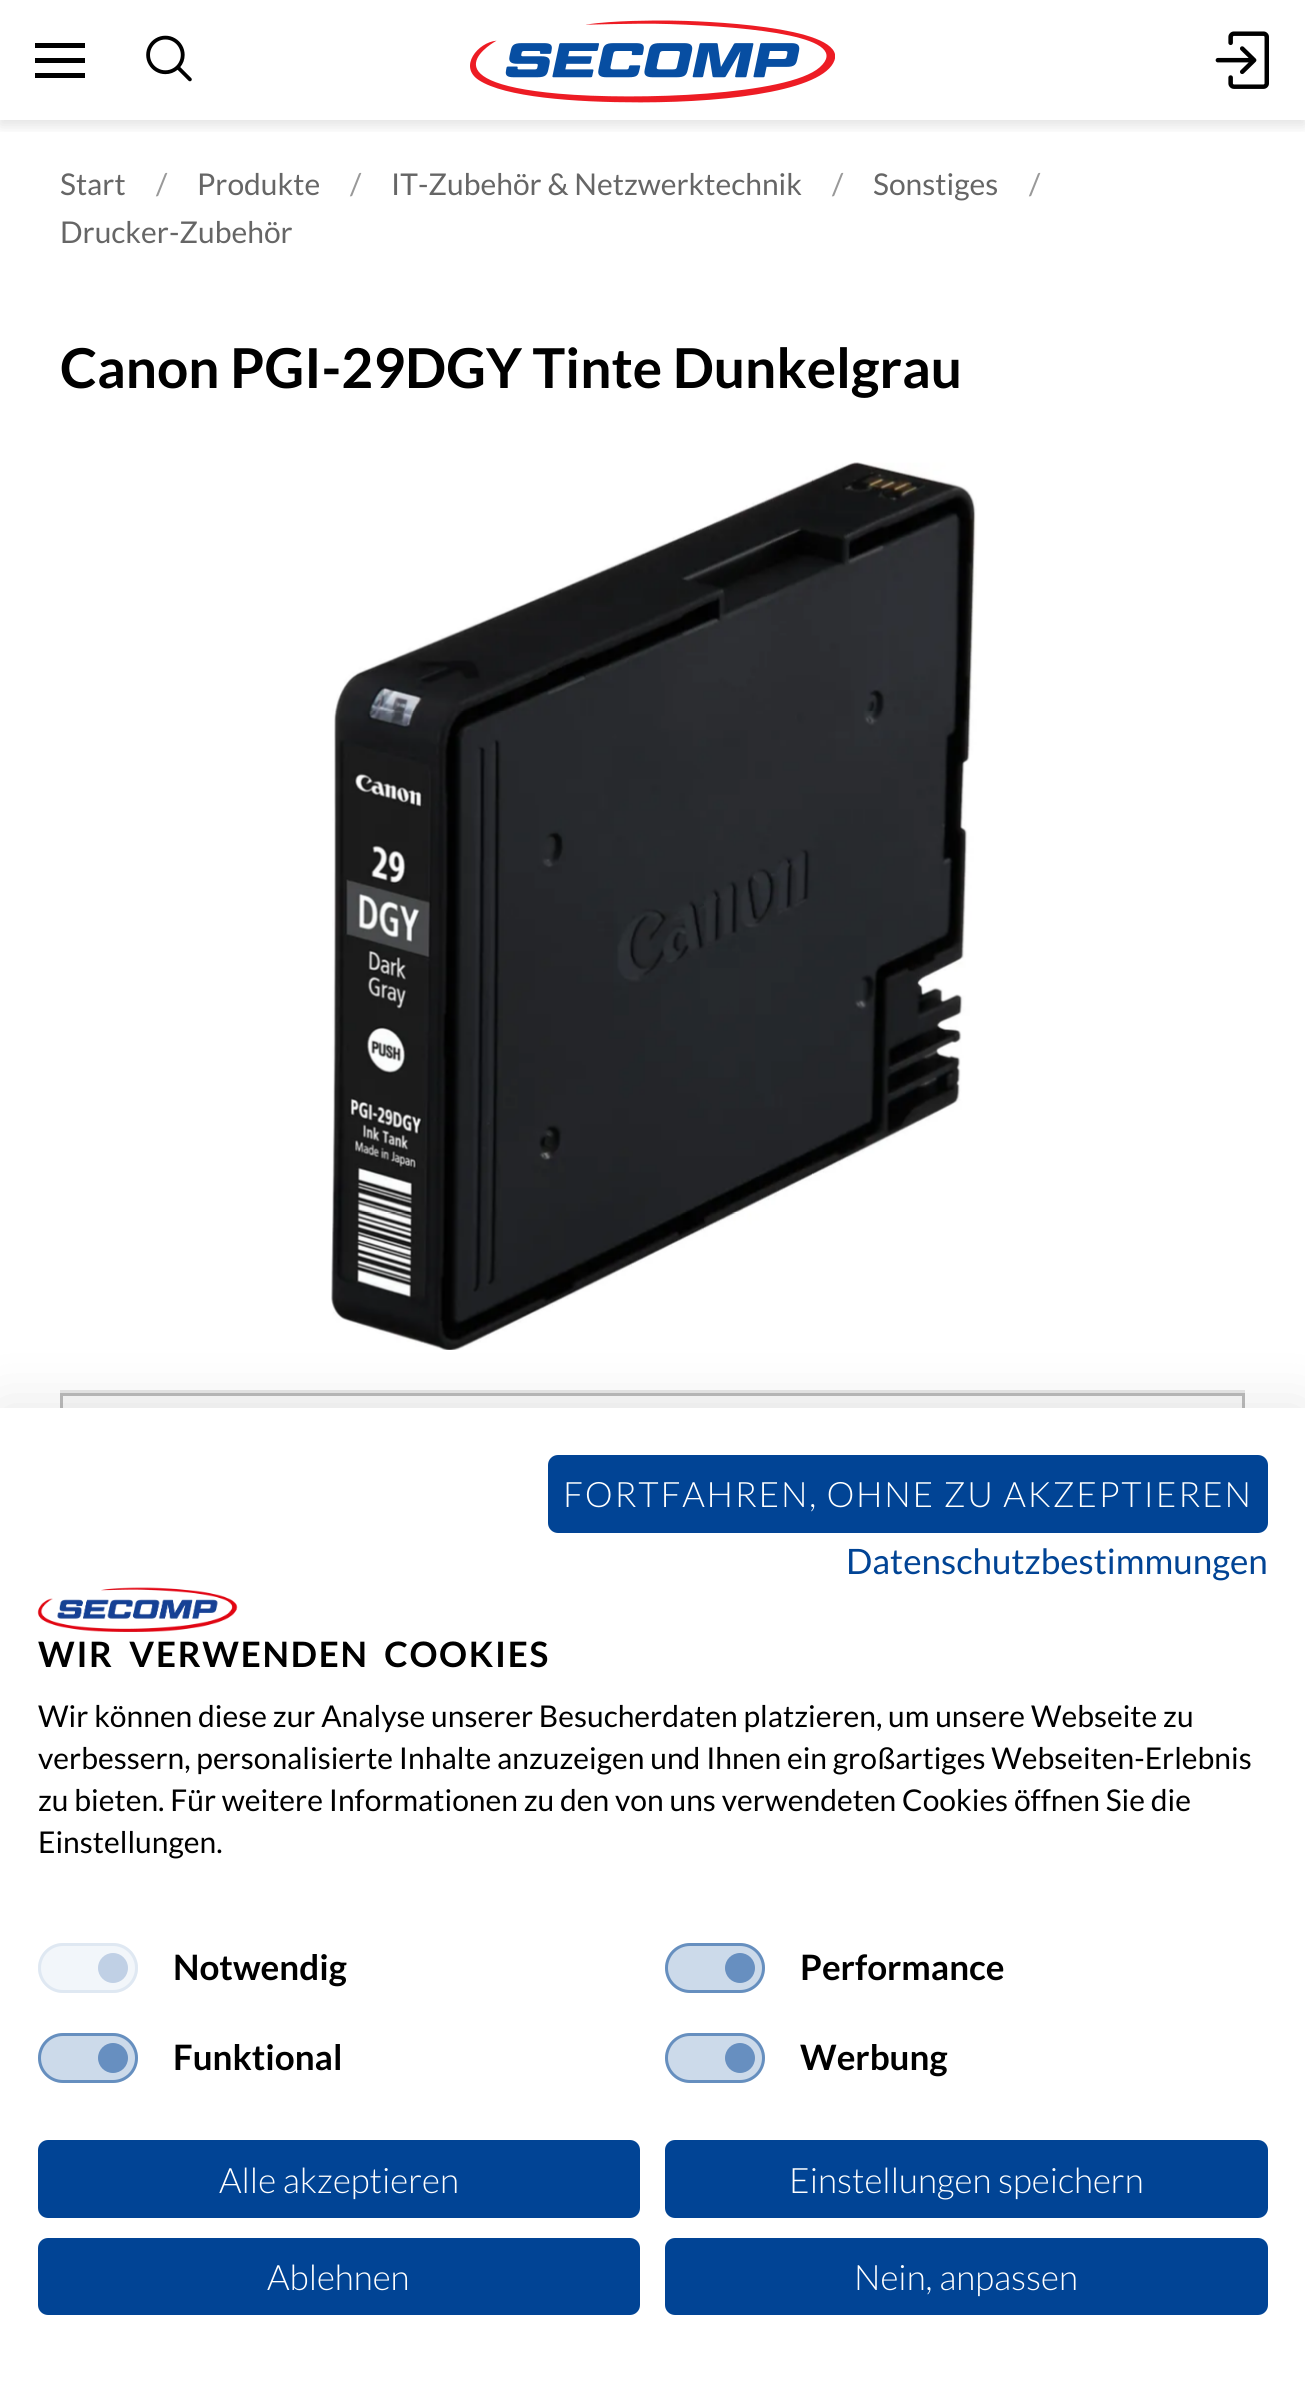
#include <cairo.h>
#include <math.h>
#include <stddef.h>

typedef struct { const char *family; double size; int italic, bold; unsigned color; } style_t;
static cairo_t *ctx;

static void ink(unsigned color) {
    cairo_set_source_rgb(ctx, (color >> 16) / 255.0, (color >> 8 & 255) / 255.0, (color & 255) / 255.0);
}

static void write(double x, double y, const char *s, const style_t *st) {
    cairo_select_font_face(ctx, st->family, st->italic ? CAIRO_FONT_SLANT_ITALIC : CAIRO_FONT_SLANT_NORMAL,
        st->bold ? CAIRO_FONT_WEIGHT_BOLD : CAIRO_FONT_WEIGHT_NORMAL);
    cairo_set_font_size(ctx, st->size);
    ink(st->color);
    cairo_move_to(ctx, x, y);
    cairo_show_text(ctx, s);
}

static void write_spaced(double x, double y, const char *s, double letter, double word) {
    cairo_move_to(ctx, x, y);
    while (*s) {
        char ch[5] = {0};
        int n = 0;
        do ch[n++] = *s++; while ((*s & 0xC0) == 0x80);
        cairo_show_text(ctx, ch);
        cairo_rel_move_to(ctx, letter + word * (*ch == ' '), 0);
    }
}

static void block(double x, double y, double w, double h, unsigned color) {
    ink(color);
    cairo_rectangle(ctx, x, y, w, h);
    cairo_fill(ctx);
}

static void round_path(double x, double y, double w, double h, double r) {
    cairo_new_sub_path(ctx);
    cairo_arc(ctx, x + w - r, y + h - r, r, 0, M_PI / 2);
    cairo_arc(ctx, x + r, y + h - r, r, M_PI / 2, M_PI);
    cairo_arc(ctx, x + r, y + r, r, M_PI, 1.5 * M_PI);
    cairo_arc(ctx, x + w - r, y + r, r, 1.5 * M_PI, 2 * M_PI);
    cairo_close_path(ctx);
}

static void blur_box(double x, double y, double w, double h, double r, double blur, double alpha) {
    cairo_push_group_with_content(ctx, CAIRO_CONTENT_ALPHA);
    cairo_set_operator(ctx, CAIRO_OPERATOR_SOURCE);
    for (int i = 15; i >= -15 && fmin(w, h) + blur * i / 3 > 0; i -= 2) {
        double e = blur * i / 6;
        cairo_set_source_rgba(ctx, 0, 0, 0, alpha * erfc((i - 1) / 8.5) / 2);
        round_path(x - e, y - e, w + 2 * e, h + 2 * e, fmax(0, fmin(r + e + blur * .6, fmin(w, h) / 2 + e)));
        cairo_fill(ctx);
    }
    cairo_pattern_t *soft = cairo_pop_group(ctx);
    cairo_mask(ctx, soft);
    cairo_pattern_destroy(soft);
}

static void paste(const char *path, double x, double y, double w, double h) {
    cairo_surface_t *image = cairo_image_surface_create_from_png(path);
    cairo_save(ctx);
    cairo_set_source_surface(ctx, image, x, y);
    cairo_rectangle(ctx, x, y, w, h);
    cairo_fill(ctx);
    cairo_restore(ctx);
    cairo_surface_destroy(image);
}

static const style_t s1 = {"Lato", 30, 0, 0, 0x666666};
static const style_t s2 = {"Lato", 30, 0, 0, 0x999999};
static const style_t s3 = {"Lato", 55, 0, 1, 0x000000};
static const style_t s4 = {"Lato", 35, 0, 0, 0x014495};
static const style_t s5 = {"Lato", 30, 0, 0, 0x000000};
static const style_t s6 = {"Lato", 35, 0, 1, 0x000000};
static const style_t s7 = {"Lato Light", 35, 0, 0, 0xffffff};

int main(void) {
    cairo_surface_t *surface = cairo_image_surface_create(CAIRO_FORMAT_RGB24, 1305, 2382);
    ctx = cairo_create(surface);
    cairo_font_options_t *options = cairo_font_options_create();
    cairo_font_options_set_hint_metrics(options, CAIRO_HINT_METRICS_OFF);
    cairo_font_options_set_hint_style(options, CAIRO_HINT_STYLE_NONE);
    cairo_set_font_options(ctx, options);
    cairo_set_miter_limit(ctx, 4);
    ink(0xffffff);
    cairo_paint(ctx);
    cairo_save(ctx);
    cairo_rectangle(ctx, 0, 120, 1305, 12);
    cairo_clip(ctx);
    ink(0x010101);
    blur_box(0, 5, 1305, 120, 0, 7.5, 0.12);
    cairo_restore(ctx);
    block(35, 43, 50, 5, 0x000000);
    block(35, 58, 50, 5, 0x000000);
    block(35, 73, 50, 5, 0x000000);
    paste("pic1.png", 146, 35, 46, 47);
    paste("pic2.png", 470, 20, 365, 83);
    paste("pic3.png", 1215, 31, 54, 58);
    write(60, 195, "Start", &s1);
    write(156, 195, "/", &s2);
    write(197, 195, "Produkte", &s1);
    write(350, 195, "/", &s2);
    write(391, 195, "IT-Zubehör & Netzwerktechnik", &s1);
    write(832, 195, "/", &s2);
    write(873, 195, "Sonstiges", &s1);
    write(1029, 195, "/", &s2);
    write(60, 243, "Drucker-Zubehör", &s1);
    write(60, 388, "Canon PGI-29DGY Tinte Dunkelgrau", &s3);
    block(60, 1390, 1185, 3, 0xe5e5e5);
    paste("pic4.png", 331, 462, 646, 888);
    block(63, 1396, 1179, 12, 0xf9f9f9);
    cairo_rectangle(ctx, 61.5, 1394.5, 1182, 444);
    ink(0xbbbbbb);
    cairo_set_line_width(ctx, 3);
    cairo_stroke(ctx);
    ink(0x000000);
    blur_box(0, 1408, 1305, 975, 0, 30, 0.1);
    block(0, 1408, 1305, 974, 0xffffff);
    ink(0x014495);
    round_path(549.5, 1456.5, 717, 75, 8.5);
    cairo_fill_preserve(ctx);
    cairo_stroke(ctx);
    cairo_select_font_face(ctx, "Lato Light", CAIRO_FONT_SLANT_NORMAL, CAIRO_FONT_WEIGHT_NORMAL);
    cairo_set_font_size(ctx, 35);
    ink(0xffffff);
    write_spaced(563, 1507, "FORTFAHREN, OHNE ZU AKZEPTIEREN", 1.75, 0);
    write(846, 1574, "Datenschutzbestimmungen", &s4);
    paste("pic5.png", 37, 1587, 201, 45);
    cairo_select_font_face(ctx, "Lato", CAIRO_FONT_SLANT_NORMAL, CAIRO_FONT_WEIGHT_BOLD);
    ink(0x000000);
    write_spaced(38, 1667, "WIR VERWENDEN COOKIES", 1.75, 7);
    write(38, 1727, "Wir können diese zur Analyse unserer Besucherdaten platzieren, um unsere Webseite zu", &s5);
    write(38, 1769, "verbessern, personalisierte Inhalte anzuzeigen und Ihnen ein großartiges Webseiten-Erlebnis", &s5);
    write(38, 1811, "zu bieten. Für weitere Informationen zu den von uns verwendeten Cookies öffnen Sie die", &s5);
    write(38, 1853, "Einstellungen.", &s5);
    ink(0xf2f6fa);
    round_path(38, 1943, 100, 50, 25);
    cairo_fill(ctx);
    ink(0xc0d0e5);
    cairo_arc(ctx, 113, 1968, 15, 0, 2 * M_PI);
    cairo_fill(ctx);
    round_path(39.5, 1944.5, 97, 47, 23.5);
    ink(0xdfe8f2);
    cairo_stroke(ctx);
    write(173, 1980, "Notwendig", &s6);
    ink(0xccdaea);
    round_path(665, 1943, 100, 50, 25);
    cairo_fill(ctx);
    ink(0x678fc0);
    cairo_arc(ctx, 740, 1968, 15, 0, 2 * M_PI);
    cairo_fill(ctx);
    round_path(666.5, 1944.5, 97, 47, 23.5);
    cairo_set_source_rgba(ctx, 0.004, 0.267, 0.584, 0.5);
    cairo_stroke(ctx);
    write(800, 1980, "Performance", &s6);
    ink(0xccdaea);
    round_path(38, 2033, 100, 50, 25);
    cairo_fill(ctx);
    ink(0x678fc0);
    cairo_arc(ctx, 113, 2058, 15, 0, 2 * M_PI);
    cairo_fill(ctx);
    round_path(39.5, 2034.5, 97, 47, 23.5);
    cairo_set_source_rgba(ctx, 0.004, 0.267, 0.584, 0.5);
    cairo_stroke(ctx);
    write(173, 2070, "Funktional", &s6);
    ink(0xccdaea);
    round_path(665, 2033, 100, 50, 25);
    cairo_fill(ctx);
    ink(0x678fc0);
    cairo_arc(ctx, 740, 2058, 15, 0, 2 * M_PI);
    cairo_fill(ctx);
    round_path(666.5, 2034.5, 97, 47, 23.5);
    cairo_set_source_rgba(ctx, 0.004, 0.267, 0.584, 0.5);
    cairo_stroke(ctx);
    write(800, 2070, "Werbung", &s6);
    ink(0x014495);
    round_path(39.5, 2141.5, 599, 75, 8.5);
    cairo_fill_preserve(ctx);
    cairo_stroke(ctx);
    write(219, 2193, "Alle akzeptieren", &s7);
    ink(0x014495);
    round_path(666.5, 2141.5, 600, 75, 8.5);
    cairo_fill_preserve(ctx);
    cairo_stroke(ctx);
    write(789, 2193, "Einstellungen speichern", &s7);
    ink(0x014495);
    round_path(39.5, 2239.5, 599, 74, 8.5);
    cairo_fill_preserve(ctx);
    cairo_stroke(ctx);
    write(267, 2290, "Ablehnen", &s7);
    ink(0x014495);
    round_path(666.5, 2239.5, 600, 74, 8.5);
    cairo_fill_preserve(ctx);
    cairo_stroke(ctx);
    write(854, 2290, "Nein, anpassen", &s7);
    cairo_surface_write_to_png(surface, "screenshot.png");
    cairo_font_options_destroy(options);
    cairo_destroy(ctx);
    cairo_surface_destroy(surface);
    return 0;
}
